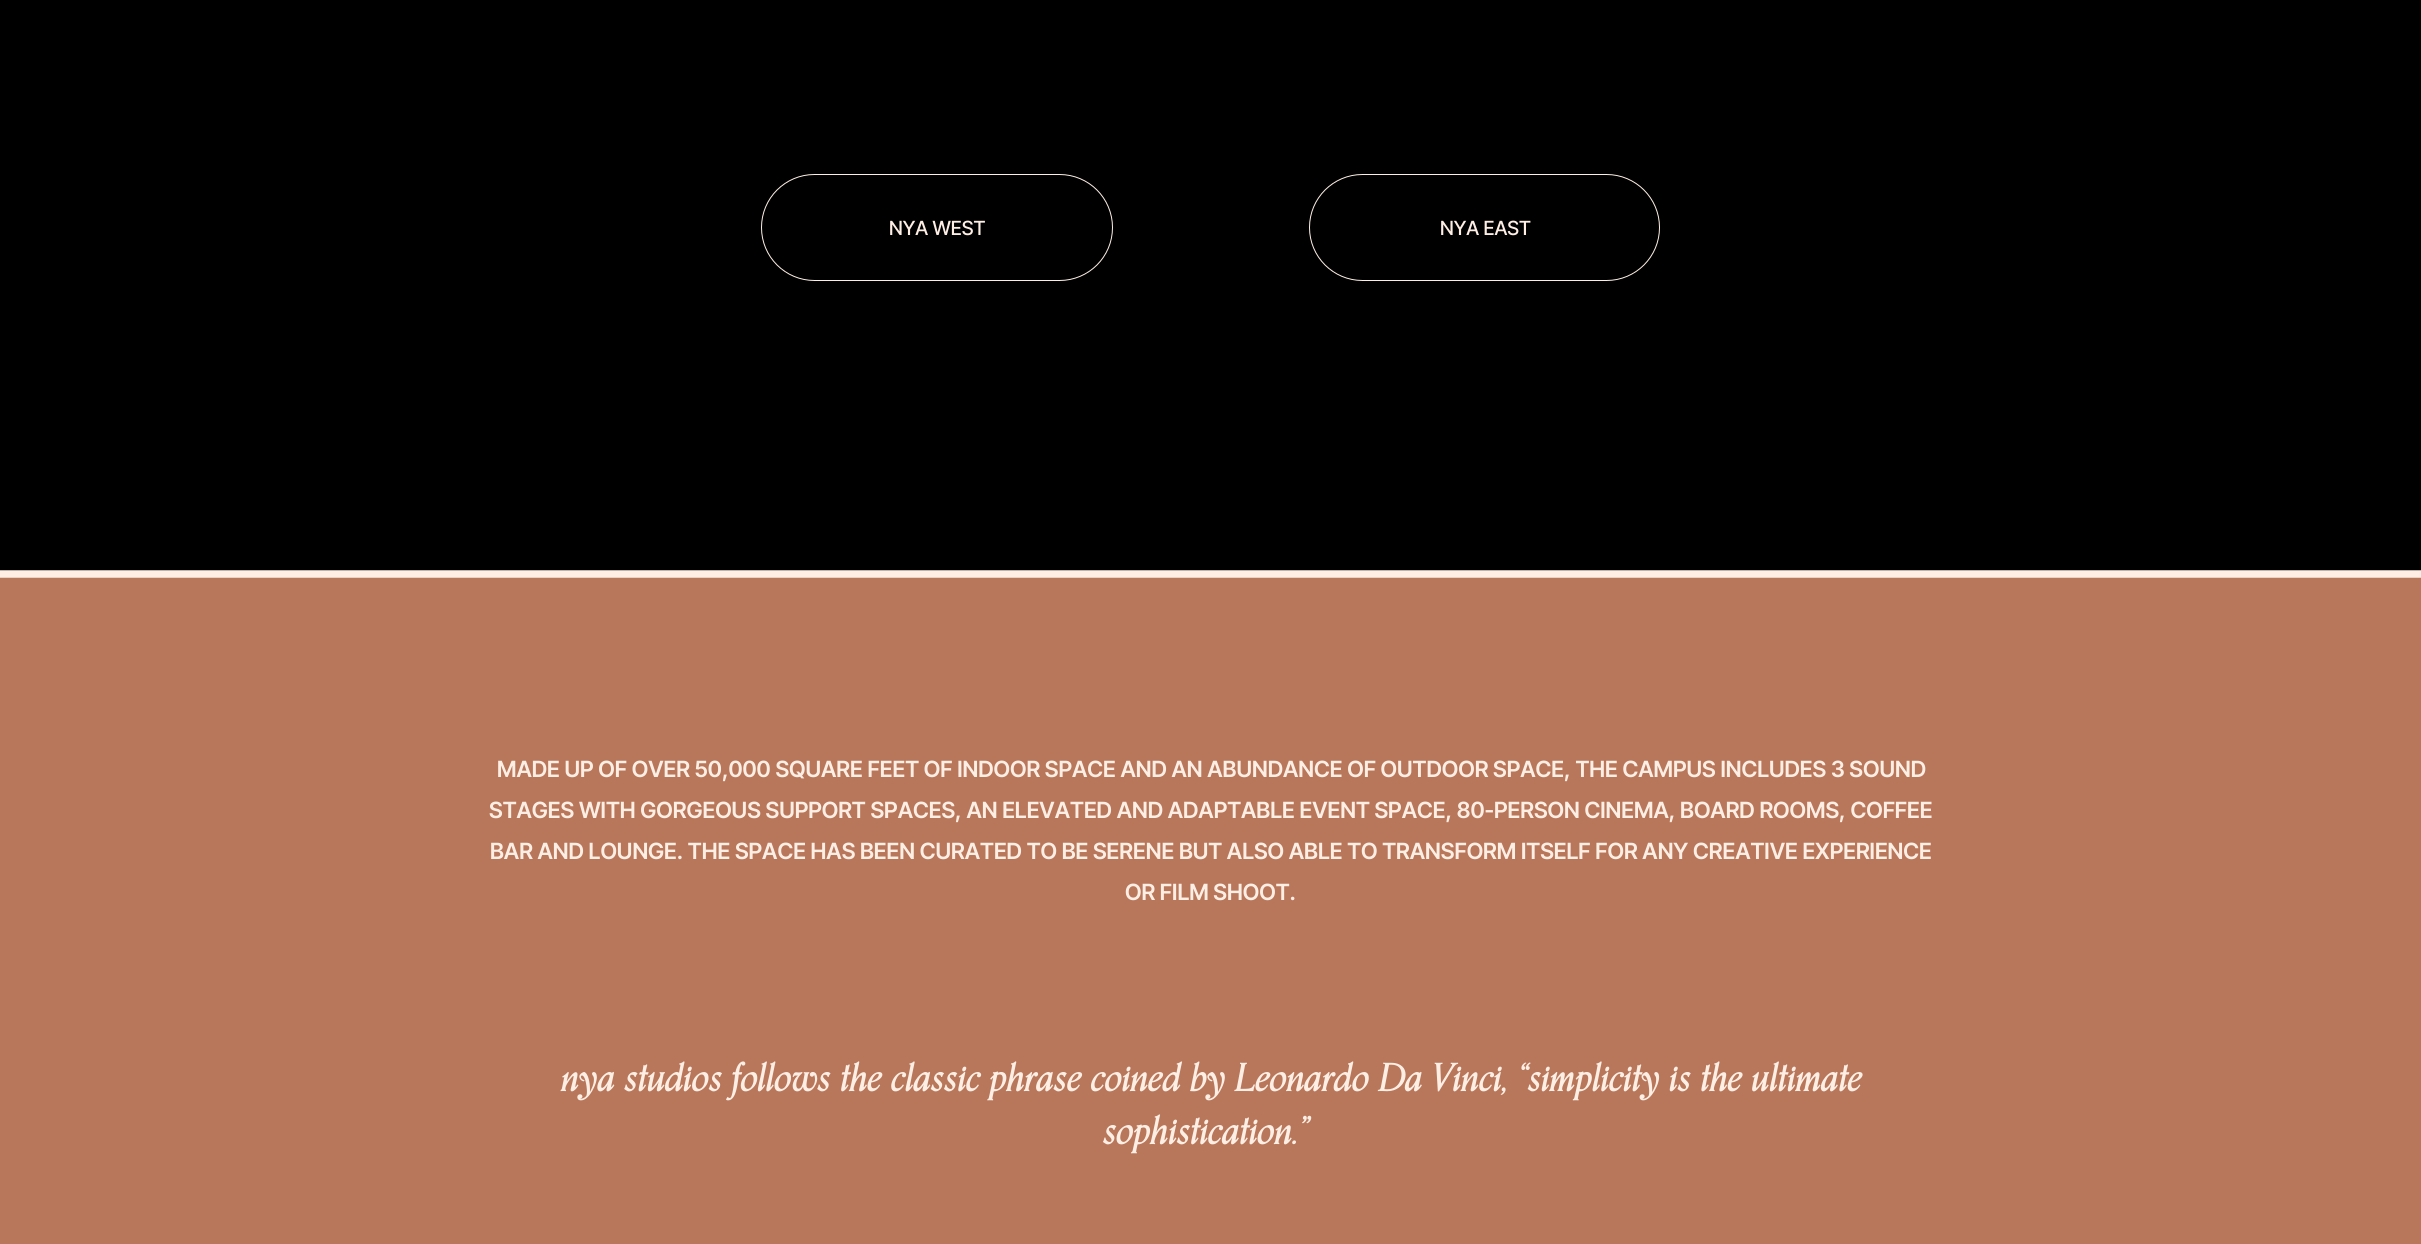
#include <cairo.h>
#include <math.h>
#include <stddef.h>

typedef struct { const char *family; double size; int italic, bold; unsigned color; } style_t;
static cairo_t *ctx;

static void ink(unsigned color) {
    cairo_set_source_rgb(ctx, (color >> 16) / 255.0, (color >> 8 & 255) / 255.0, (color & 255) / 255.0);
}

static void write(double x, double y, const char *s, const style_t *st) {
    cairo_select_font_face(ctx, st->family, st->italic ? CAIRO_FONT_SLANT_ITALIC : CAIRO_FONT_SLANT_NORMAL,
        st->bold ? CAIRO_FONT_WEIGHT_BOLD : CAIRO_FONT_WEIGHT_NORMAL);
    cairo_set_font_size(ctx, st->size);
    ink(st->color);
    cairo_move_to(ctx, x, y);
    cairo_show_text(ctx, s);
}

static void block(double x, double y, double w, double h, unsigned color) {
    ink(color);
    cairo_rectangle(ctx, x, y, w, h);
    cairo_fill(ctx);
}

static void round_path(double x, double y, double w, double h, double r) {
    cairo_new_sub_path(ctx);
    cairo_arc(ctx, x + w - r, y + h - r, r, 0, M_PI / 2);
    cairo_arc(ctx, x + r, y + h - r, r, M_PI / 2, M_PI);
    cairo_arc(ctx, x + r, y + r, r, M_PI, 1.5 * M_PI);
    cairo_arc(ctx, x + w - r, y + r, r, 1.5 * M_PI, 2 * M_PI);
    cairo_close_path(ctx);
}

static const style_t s1 = {"Inter Tight Medium", 19.5, 0, 0, 0xfeeee4};
static const style_t s2 = {"Inter Tight SemiBold", 22.32, 0, 0, 0xfeeee4};
static const style_t s3 = {"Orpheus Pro", 37.45, 1, 1, 0xfeeee4};

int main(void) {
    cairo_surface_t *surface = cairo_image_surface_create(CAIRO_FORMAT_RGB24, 2421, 1244);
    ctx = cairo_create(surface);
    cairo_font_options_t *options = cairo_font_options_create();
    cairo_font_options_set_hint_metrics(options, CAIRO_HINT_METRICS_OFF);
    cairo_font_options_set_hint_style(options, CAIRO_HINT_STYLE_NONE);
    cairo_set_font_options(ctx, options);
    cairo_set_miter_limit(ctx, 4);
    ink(0xb8775b);
    cairo_paint(ctx);
    block(0, 0, 2421, 571, 0x000000);
    round_path(761.5, 174.5, 351, 106, 53);
    ink(0xfeeee4);
    cairo_set_line_width(ctx, 1);
    cairo_stroke(ctx);
    write(889, 235, "NYA WEST", &s1);
    round_path(1309.5, 174.5, 350, 106, 53);
    cairo_stroke(ctx);
    write(1440, 235, "NYA EAST", &s1);
    cairo_new_path(ctx);
    cairo_move_to(ctx, -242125, -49);
    cairo_line_to(ctx, -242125, 1196);
    cairo_move_to(ctx, 0, 574);
    cairo_line_to(ctx, 2421, 574);
    cairo_set_line_width(ctx, 7.5);
    cairo_set_line_cap(ctx, CAIRO_LINE_CAP_SQUARE);
    cairo_stroke(ctx);
    write(497, 777, "MADE UP OF OVER 50,000 SQUARE FEET OF INDOOR SPACE AND AN ABUNDANCE OF OUTDOOR SPACE, THE CAMPUS INCLUDES 3 SOUND", &s2);
    write(489, 818, "STAGES WITH GORGEOUS SUPPORT SPACES, AN ELEVATED AND ADAPTABLE EVENT SPACE, 80-PERSON CINEMA, BOARD ROOMS, COFFEE", &s2);
    write(490, 859, "BAR AND LOUNGE. THE SPACE HAS BEEN CURATED TO BE SERENE BUT ALSO ABLE TO TRANSFORM ITSELF FOR ANY CREATIVE EXPERIENCE", &s2);
    write(1125, 900, "OR FILM SHOOT.", &s2);
    write(561, 1091, "nya studios follows the classic phrase coined by Leonardo Da Vinci, “simplicity is the ultimate", &s3);
    write(1103, 1144, "sophistication.”", &s3);
    cairo_surface_write_to_png(surface, "screenshot.png");
    cairo_font_options_destroy(options);
    cairo_destroy(ctx);
    cairo_surface_destroy(surface);
    return 0;
}
